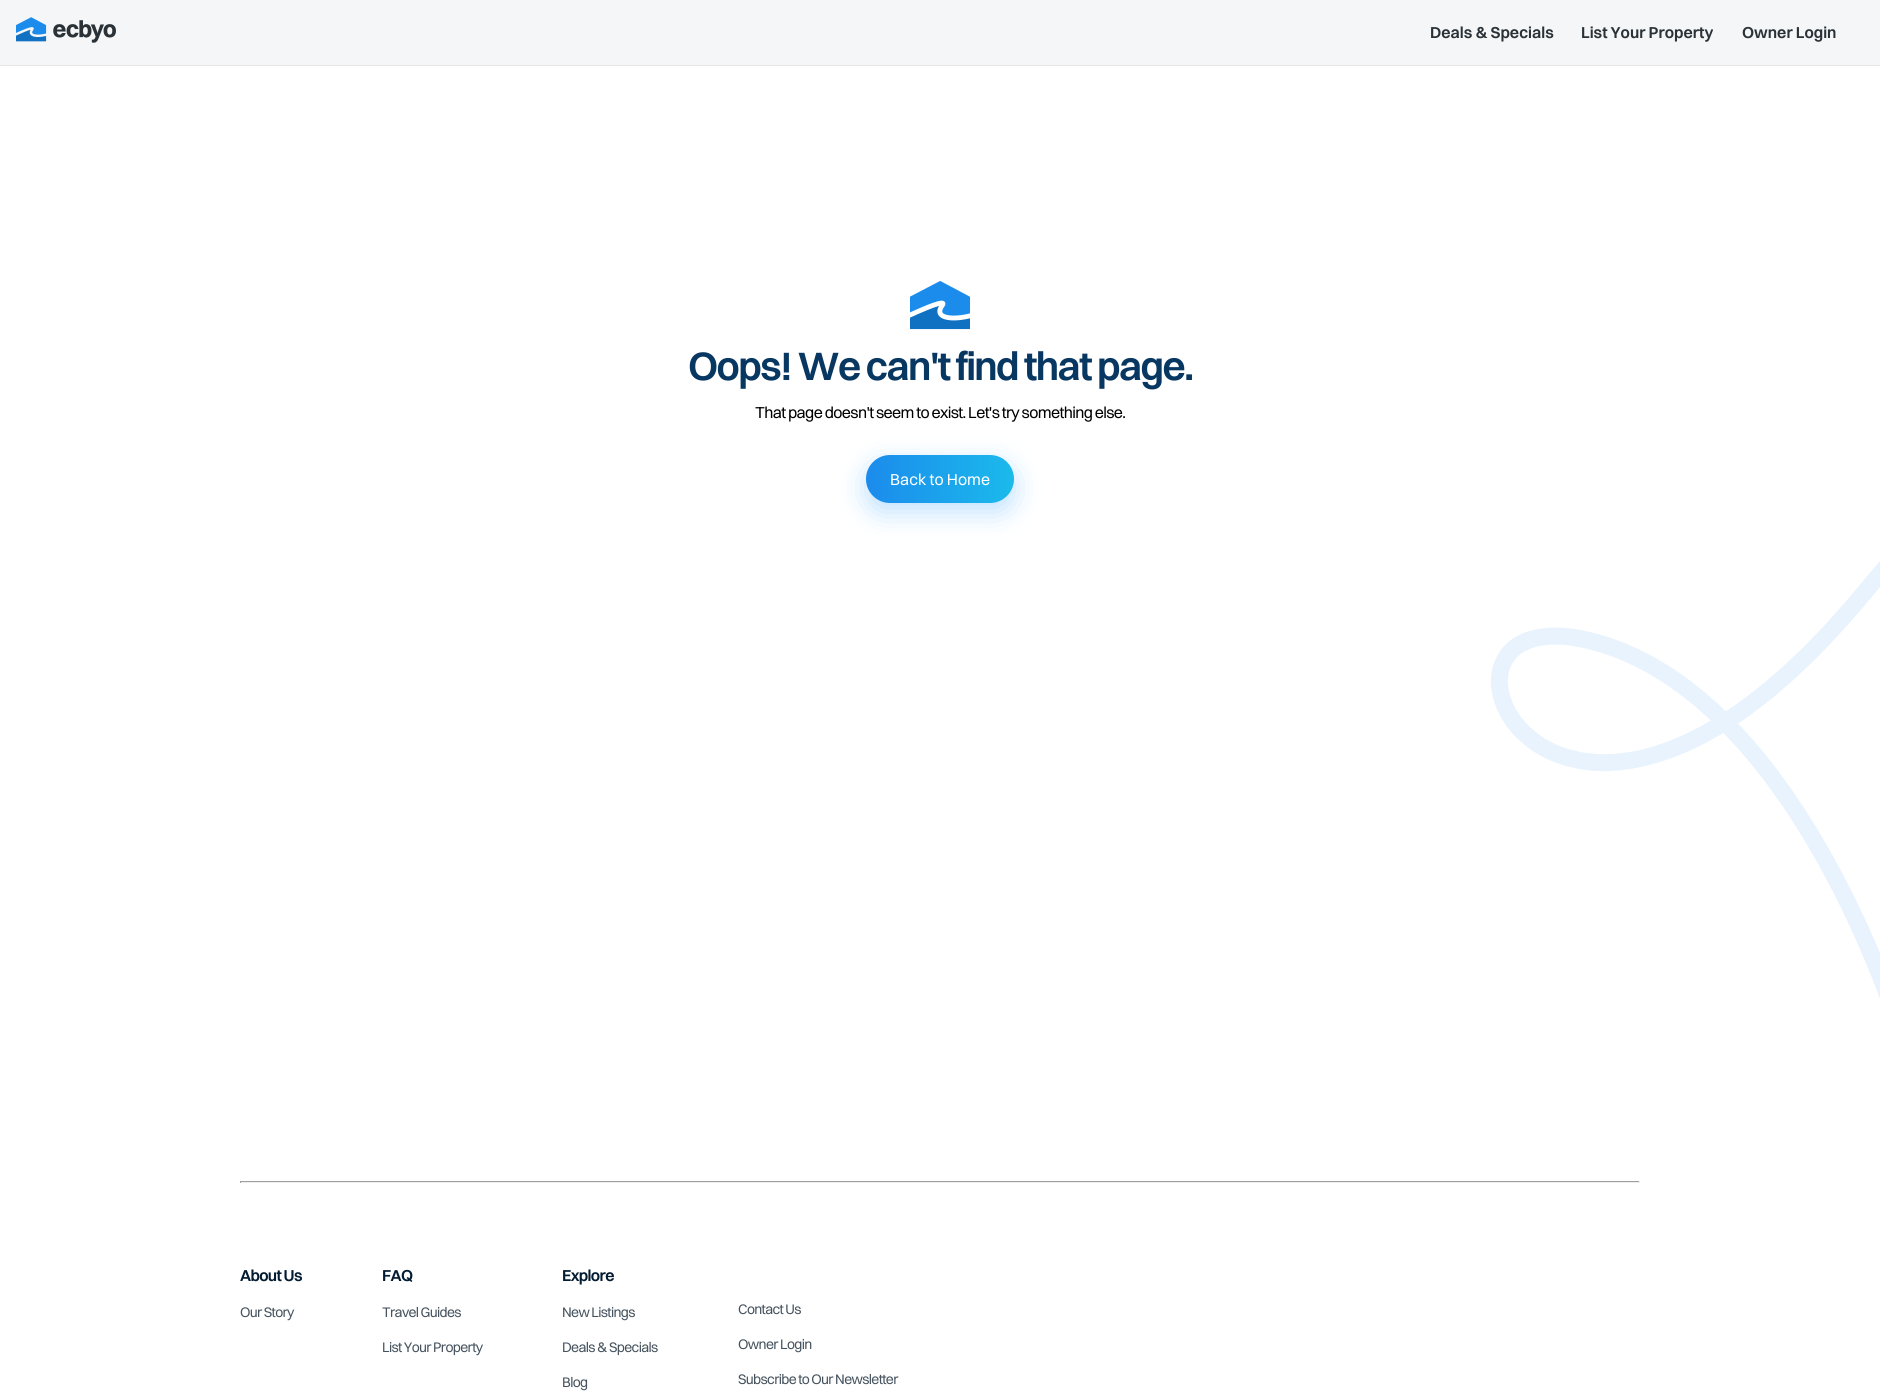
#include <cairo.h>
#include <math.h>
#include <stddef.h>

typedef struct { const char *family; double size; int italic, bold; unsigned color; } style_t;
static cairo_t *ctx;

static void ink(unsigned color) {
    cairo_set_source_rgb(ctx, (color >> 16) / 255.0, (color >> 8 & 255) / 255.0, (color & 255) / 255.0);
}

static void write(double x, double y, const char *s, const style_t *st) {
    cairo_select_font_face(ctx, st->family, st->italic ? CAIRO_FONT_SLANT_ITALIC : CAIRO_FONT_SLANT_NORMAL,
        st->bold ? CAIRO_FONT_WEIGHT_BOLD : CAIRO_FONT_WEIGHT_NORMAL);
    cairo_set_font_size(ctx, st->size);
    ink(st->color);
    cairo_move_to(ctx, x, y);
    cairo_show_text(ctx, s);
}

static void write_spaced(double x, double y, const char *s, double letter, double word) {
    cairo_move_to(ctx, x, y);
    while (*s) {
        char ch[5] = {0};
        int n = 0;
        do ch[n++] = *s++; while ((*s & 0xC0) == 0x80);
        cairo_show_text(ctx, ch);
        cairo_rel_move_to(ctx, letter + word * (*ch == ' '), 0);
    }
}

static void block(double x, double y, double w, double h, unsigned color) {
    ink(color);
    cairo_rectangle(ctx, x, y, w, h);
    cairo_fill(ctx);
}

static void round_path(double x, double y, double w, double h, double r) {
    cairo_new_sub_path(ctx);
    cairo_arc(ctx, x + w - r, y + h - r, r, 0, M_PI / 2);
    cairo_arc(ctx, x + r, y + h - r, r, M_PI / 2, M_PI);
    cairo_arc(ctx, x + r, y + r, r, M_PI, 1.5 * M_PI);
    cairo_arc(ctx, x + w - r, y + r, r, 1.5 * M_PI, 2 * M_PI);
    cairo_close_path(ctx);
}

static void blur_box(double x, double y, double w, double h, double r, double blur, double alpha) {
    cairo_push_group_with_content(ctx, CAIRO_CONTENT_ALPHA);
    cairo_set_operator(ctx, CAIRO_OPERATOR_SOURCE);
    for (int i = 15; i >= -15 && fmin(w, h) + blur * i / 3 > 0; i -= 2) {
        double e = blur * i / 6;
        cairo_set_source_rgba(ctx, 0, 0, 0, alpha * erfc((i - 1) / 8.5) / 2);
        round_path(x - e, y - e, w + 2 * e, h + 2 * e, fmax(0, fmin(r + e + blur * .6, fmin(w, h) / 2 + e)));
        cairo_fill(ctx);
    }
    cairo_pattern_t *soft = cairo_pop_group(ctx);
    cairo_mask(ctx, soft);
    cairo_pattern_destroy(soft);
}

static void paste(const char *path, double x, double y, double w, double h) {
    cairo_surface_t *image = cairo_image_surface_create_from_png(path);
    cairo_save(ctx);
    cairo_set_source_surface(ctx, image, x, y);
    cairo_rectangle(ctx, x, y, w, h);
    cairo_fill(ctx);
    cairo_restore(ctx);
    cairo_surface_destroy(image);
}

static const style_t s1 = {"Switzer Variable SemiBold", 16, 0, 0, 0x2a3238};
static const style_t s2 = {"Switzer Variable", 16, 0, 0, 0xffffff};

int main(void) {
    cairo_surface_t *surface = cairo_image_surface_create(CAIRO_FORMAT_RGB24, 1880, 1398);
    ctx = cairo_create(surface);
    cairo_font_options_t *options = cairo_font_options_create();
    cairo_font_options_set_hint_metrics(options, CAIRO_HINT_METRICS_OFF);
    cairo_font_options_set_hint_style(options, CAIRO_HINT_STYLE_NONE);
    cairo_set_font_options(ctx, options);
    cairo_set_miter_limit(ctx, 4);
    cairo_pattern_t *gradient;
    ink(0xffffff);
    cairo_paint(ctx);
    paste("pic1.png", 1490, 561, 390, 437);
    block(0, 0, 1880, 65, 0xf5f6f7);
    block(0, 65, 1880, 1, 0xe5e5e5);
    paste("pic2.png", 16, 17, 100, 26);
    write(1430, 38, "Deals & Specials", &s1);
    write(1581, 38, "List Your Property", &s1);
    write(1742, 38, "Owner Login", &s1);
    paste("pic3.png", 910, 281, 60, 49);
    cairo_set_font_size(ctx, 40);
    ink(0x083861);
    write_spaced(688, 380, "Oops! We can't find that page.", -1.6, 0);
    cairo_select_font_face(ctx, "Switzer Variable", CAIRO_FONT_SLANT_NORMAL, CAIRO_FONT_WEIGHT_NORMAL);
    cairo_set_font_size(ctx, 16);
    ink(0x000000);
    write_spaced(755, 418, "That page doesn't seem to exist. Let's try something else.", -0.65, 0);
    ink(0x44a8ff);
    blur_box(866, 464, 148, 48, 24, 13.5, 0.34);
    gradient = cairo_pattern_create_linear(866, 479, 1014, 479);
    cairo_pattern_add_color_stop_rgba(gradient, 0, 0.106, 0.545, 0.925, 1);
    cairo_pattern_add_color_stop_rgba(gradient, 1, 0.106, 0.729, 0.925, 1);
    cairo_set_source(ctx, gradient);
    cairo_pattern_destroy(gradient);
    round_path(866, 455, 148, 48, 24);
    cairo_fill(ctx);
    write(890, 485, "Back to Home", &s2);
    block(240, 1181, 1400, 1, 0x9f9f9f);
    block(1639, 1181, 1, 2, 0xeeeeee);
    block(240, 1182, 1400, 1, 0xeeeeee);
    block(240, 1181, 1, 2, 0x9f9f9f);
    cairo_select_font_face(ctx, "Switzer Variable SemiBold", CAIRO_FONT_SLANT_NORMAL, CAIRO_FONT_WEIGHT_NORMAL);
    ink(0x041c31);
    write_spaced(240, 1281, "About Us", -0.65, 0);
    cairo_select_font_face(ctx, "Switzer Variable", CAIRO_FONT_SLANT_NORMAL, CAIRO_FONT_WEIGHT_NORMAL);
    cairo_set_font_size(ctx, 14);
    ink(0x46535e);
    write_spaced(240, 1317, "Our Story", -0.65, 0);
    cairo_select_font_face(ctx, "Switzer Variable SemiBold", CAIRO_FONT_SLANT_NORMAL, CAIRO_FONT_WEIGHT_NORMAL);
    cairo_set_font_size(ctx, 16);
    ink(0x041c31);
    write_spaced(382, 1281, "FAQ", -0.65, 0);
    cairo_select_font_face(ctx, "Switzer Variable", CAIRO_FONT_SLANT_NORMAL, CAIRO_FONT_WEIGHT_NORMAL);
    cairo_set_font_size(ctx, 14);
    ink(0x46535e);
    write_spaced(382, 1317, "Travel Guides", -0.65, 0);
    write_spaced(382, 1352, "List Your Property", -0.65, 0);
    cairo_select_font_face(ctx, "Switzer Variable SemiBold", CAIRO_FONT_SLANT_NORMAL, CAIRO_FONT_WEIGHT_NORMAL);
    cairo_set_font_size(ctx, 16);
    ink(0x041c31);
    write_spaced(562, 1281, "Explore", -0.65, 0);
    cairo_select_font_face(ctx, "Switzer Variable", CAIRO_FONT_SLANT_NORMAL, CAIRO_FONT_WEIGHT_NORMAL);
    cairo_set_font_size(ctx, 14);
    ink(0x46535e);
    write_spaced(562, 1317, "New Listings", -0.65, 0);
    write_spaced(562, 1352, "Deals & Specials", -0.65, 0);
    write_spaced(562, 1387, "Blog", -0.65, 0);
    write_spaced(738, 1314, "Contact Us", -0.65, 0);
    write_spaced(738, 1349, "Owner Login", -0.65, 0);
    write_spaced(738, 1384, "Subscribe to Our Newsletter", -0.65, 0);
    cairo_surface_write_to_png(surface, "screenshot.png");
    cairo_font_options_destroy(options);
    cairo_destroy(ctx);
    cairo_surface_destroy(surface);
    return 0;
}
